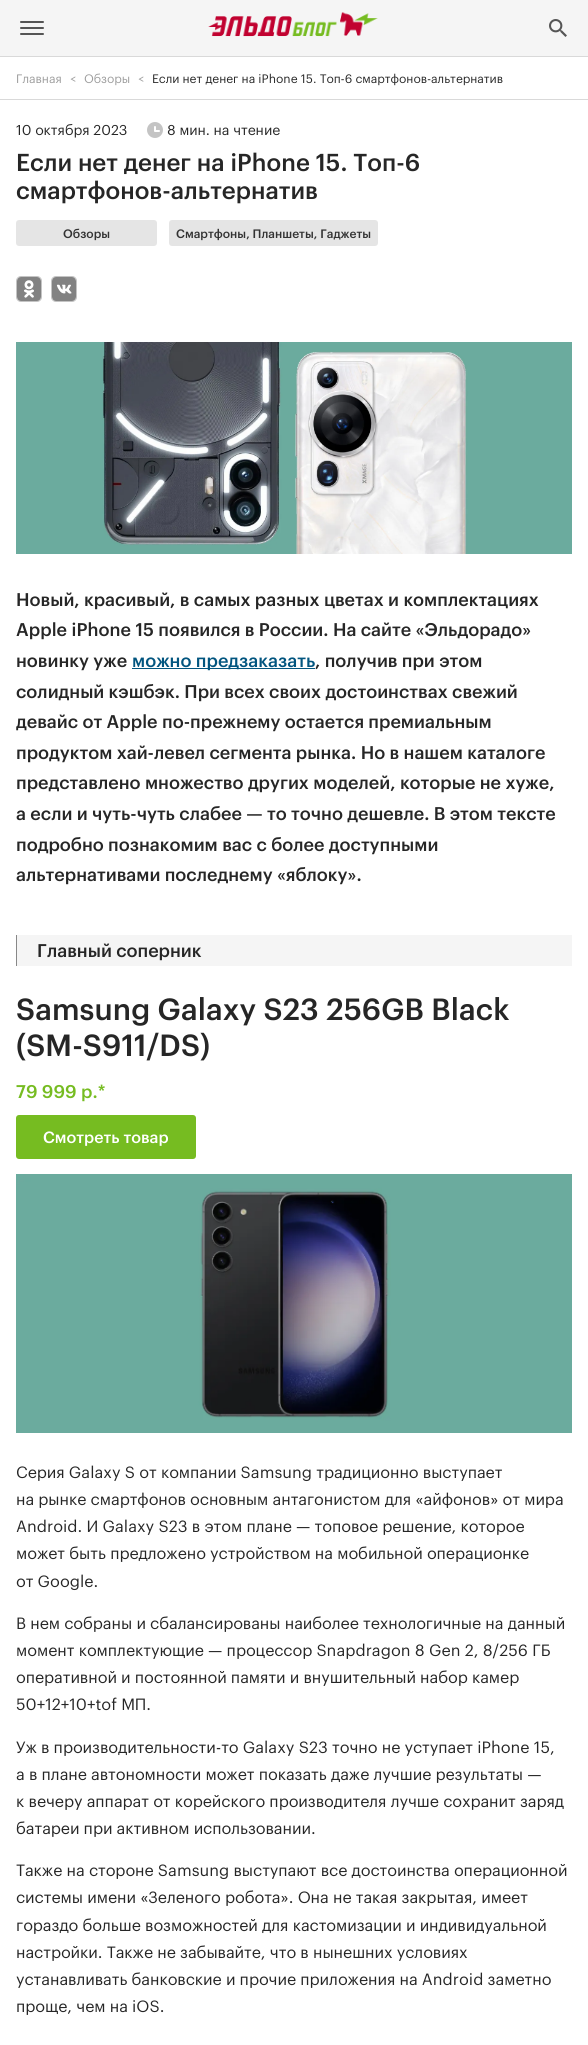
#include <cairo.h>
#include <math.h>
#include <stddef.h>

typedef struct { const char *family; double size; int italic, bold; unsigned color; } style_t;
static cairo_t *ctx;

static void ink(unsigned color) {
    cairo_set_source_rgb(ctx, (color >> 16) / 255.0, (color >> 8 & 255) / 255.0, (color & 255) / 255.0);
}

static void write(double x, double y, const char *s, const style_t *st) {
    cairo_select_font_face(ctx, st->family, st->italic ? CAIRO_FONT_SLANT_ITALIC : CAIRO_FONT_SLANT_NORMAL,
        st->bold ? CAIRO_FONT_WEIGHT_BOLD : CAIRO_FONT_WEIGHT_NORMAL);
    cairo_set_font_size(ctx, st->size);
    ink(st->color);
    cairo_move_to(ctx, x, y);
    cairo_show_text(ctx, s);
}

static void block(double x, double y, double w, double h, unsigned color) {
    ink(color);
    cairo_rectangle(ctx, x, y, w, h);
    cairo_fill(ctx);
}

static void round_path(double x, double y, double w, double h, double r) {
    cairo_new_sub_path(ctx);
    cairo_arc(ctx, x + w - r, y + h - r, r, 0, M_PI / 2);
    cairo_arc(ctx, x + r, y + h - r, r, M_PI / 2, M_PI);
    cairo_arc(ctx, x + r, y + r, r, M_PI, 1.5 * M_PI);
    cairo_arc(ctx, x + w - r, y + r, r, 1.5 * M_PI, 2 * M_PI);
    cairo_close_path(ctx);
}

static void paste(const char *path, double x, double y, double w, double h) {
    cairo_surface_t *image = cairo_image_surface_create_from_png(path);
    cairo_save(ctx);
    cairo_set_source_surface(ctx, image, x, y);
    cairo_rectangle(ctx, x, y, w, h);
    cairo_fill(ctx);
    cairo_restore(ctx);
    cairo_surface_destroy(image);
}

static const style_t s1 = {"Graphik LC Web", 12, 0, 0, 0x9d9d9d};
static const style_t s2 = {"Graphik LC Web", 12, 0, 0, 0x262626};
static const style_t s3 = {"Graphik LC Web", 14, 0, 0, 0x262626};
static const style_t s4 = {"Graphik LC Web Medium", 24, 0, 0, 0x262626};
static const style_t s5 = {"Graphik LC Web Medium", 12, 0, 0, 0x333333};
static const style_t s6 = {"Graphik LC Web Medium", 18, 0, 0, 0x262626};
static const style_t s7 = {"Graphik LC Web Medium", 18, 0, 0, 0x02557f};
static const style_t s8 = {"Graphik LC Web Medium", 30, 0, 0, 0x262626};
static const style_t s9 = {"Graphik LC Web Medium", 18, 0, 0, 0x76bc21};
static const style_t s10 = {"Graphik LC Web Medium", 16, 0, 0, 0xffffff};
static const style_t s11 = {"Graphik LC Web", 16, 0, 0, 0x262626};

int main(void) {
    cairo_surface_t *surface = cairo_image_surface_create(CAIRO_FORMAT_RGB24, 588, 2045);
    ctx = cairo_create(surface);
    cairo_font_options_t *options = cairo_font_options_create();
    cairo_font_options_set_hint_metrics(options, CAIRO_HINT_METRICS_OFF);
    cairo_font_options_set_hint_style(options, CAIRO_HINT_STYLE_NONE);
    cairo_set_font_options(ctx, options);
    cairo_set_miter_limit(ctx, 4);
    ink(0xffffff);
    cairo_paint(ctx);
    block(0, 0, 588, 56, 0xf5f5f5);
    ink(0x555555);
    round_path(20, 21, 24, 2, 1);
    cairo_fill(ctx);
    round_path(20, 27, 24, 2, 1);
    cairo_fill(ctx);
    round_path(20, 33, 24, 2, 1);
    cairo_fill(ctx);
    paste("pic1.png", 208, 12, 170, 25);
    paste("pic2.png", 549, 19, 18, 18);
    block(0, 56, 588, 1, 0xd9d9d9);
    block(0, 99, 588, 1, 0xd9d9d9);
    write(16, 83, "Главная", &s1);
    write(70, 83, "<", &s1);
    write(84, 83, "Обзоры", &s1);
    write(138, 83, "<", &s1);
    write(152, 83, "Если нет денег на iPhone 15. Топ-6 смартфонов-альтернатив", &s2);
    write(16, 135, "10 октября 2023", &s3);
    paste("pic3.png", 147, 122, 16, 16);
    write(167, 135, "8 мин. на чтение", &s3);
    write(16, 171, "Если нет денег на iPhone 15. Топ-6", &s4);
    write(16, 199, "смартфонов-альтернатив", &s4);
    ink(0xe5e5e5);
    round_path(16, 220, 141, 26, 3);
    cairo_fill(ctx);
    write(63, 238, "Обзоры", &s5);
    ink(0xe5e5e5);
    round_path(169, 220, 209, 26, 3);
    cairo_fill(ctx);
    write(176, 238, "Смартфоны, Планшеты, Гаджеты", &s5);
    round_path(16.5, 276.5, 25, 25, 4.5);
    ink(0xc4c4c4);
    cairo_set_line_width(ctx, 1);
    cairo_stroke(ctx);
    paste("pic4.png", 17, 277, 24, 24);
    round_path(51.5, 276.5, 25, 25, 4.5);
    cairo_stroke(ctx);
    paste("pic5.png", 52, 277, 24, 24);
    paste("pic6.png", 16, 342, 556, 212);
    write(16, 606, "Новый, красивый, в самых разных цветах и комплектациях", &s6);
    write(16, 636, "Apple iPhone 15 появился в России. На сайте «Эльдорадо»", &s6);
    write(16, 667, "новинку уже", &s6);
    block(132, 668, 183, 1, 0x02557f);
    write(132, 667, "можно предзаказать", &s7);
    write(315, 667, ", получив при этом", &s6);
    write(16, 698, "солидный кэшбэк. При всех своих достоинствах свежий", &s6);
    write(16, 728, "девайс от Apple по-прежнему остается премиальным", &s6);
    write(16, 759, "продуктом хай-левел сегмента рынка. Но в нашем каталоге", &s6);
    write(16, 789, "представлено множество других моделей, которые не хуже,", &s6);
    write(16, 820, "а если и чуть-чуть слабее — то точно дешевле. В этом тексте", &s6);
    write(16, 851, "подробно познакомим вас с более доступными", &s6);
    write(16, 881, "альтернативами последнему «яблоку».", &s6);
    block(17, 935, 555, 31, 0xf5f5f5);
    block(16, 935, 1, 31, 0x888888);
    write(37, 957, "Главный соперник", &s6);
    write(16, 1020, "Samsung Galaxy S23 256GB Black", &s8);
    write(16, 1056, "(SM-S911/DS)", &s8);
    write(16, 1098, "79 999 р.*", &s9);
    round_path(16, 1115, 180, 44, 3);
    cairo_fill(ctx);
    write(43, 1143, "Смотреть товар", &s10);
    paste("pic7.png", 16, 1174, 556, 259);
    write(16, 1478, "Серия Galaxy S от компании Samsung традиционно выступает", &s11);
    write(16, 1505, "на рынке смартфонов основным антагонистом для «айфонов» от мира", &s11);
    write(16, 1532, "Android. И Galaxy S23 в этом плане — топовое решение, которое", &s11);
    write(16, 1559, "может быть предложено устройством на мобильной операционке", &s11);
    write(16, 1587, "от Google.", &s11);
    write(16, 1629, "В нем собраны и сбалансированы наиболее технологичные на данный", &s11);
    write(16, 1656, "момент комплектующие — процессор Snapdragon 8 Gen 2, 8/256 ГБ", &s11);
    write(16, 1683, "оперативной и постоянной памяти и внушительный набор камер", &s11);
    write(16, 1710, "50+12+10+tof МП.", &s11);
    write(16, 1753, "Уж в производительности-то Galaxy S23 точно не уступает iPhone 15,", &s11);
    write(16, 1780, "а в плане автономности может показать даже лучшие результаты —", &s11);
    write(16, 1807, "к вечеру аппарат от корейского производителя лучше сохранит заряд", &s11);
    write(16, 1834, "батареи при активном использовании.", &s11);
    write(16, 1876, "Также на стороне Samsung выступают все достоинства операционной", &s11);
    write(16, 1903, "системы имени «Зеленого робота». Она не такая закрытая, имеет", &s11);
    write(16, 1931, "гораздо больше возможностей для кастомизации и индивидуальной", &s11);
    write(16, 1958, "настройки. Также не забывайте, что в нынешних условиях", &s11);
    write(16, 1985, "устанавливать банковские и прочие приложения на Android заметно", &s11);
    write(16, 2012, "проще, чем на iOS.", &s11);
    cairo_surface_write_to_png(surface, "screenshot.png");
    cairo_font_options_destroy(options);
    cairo_destroy(ctx);
    cairo_surface_destroy(surface);
    return 0;
}
